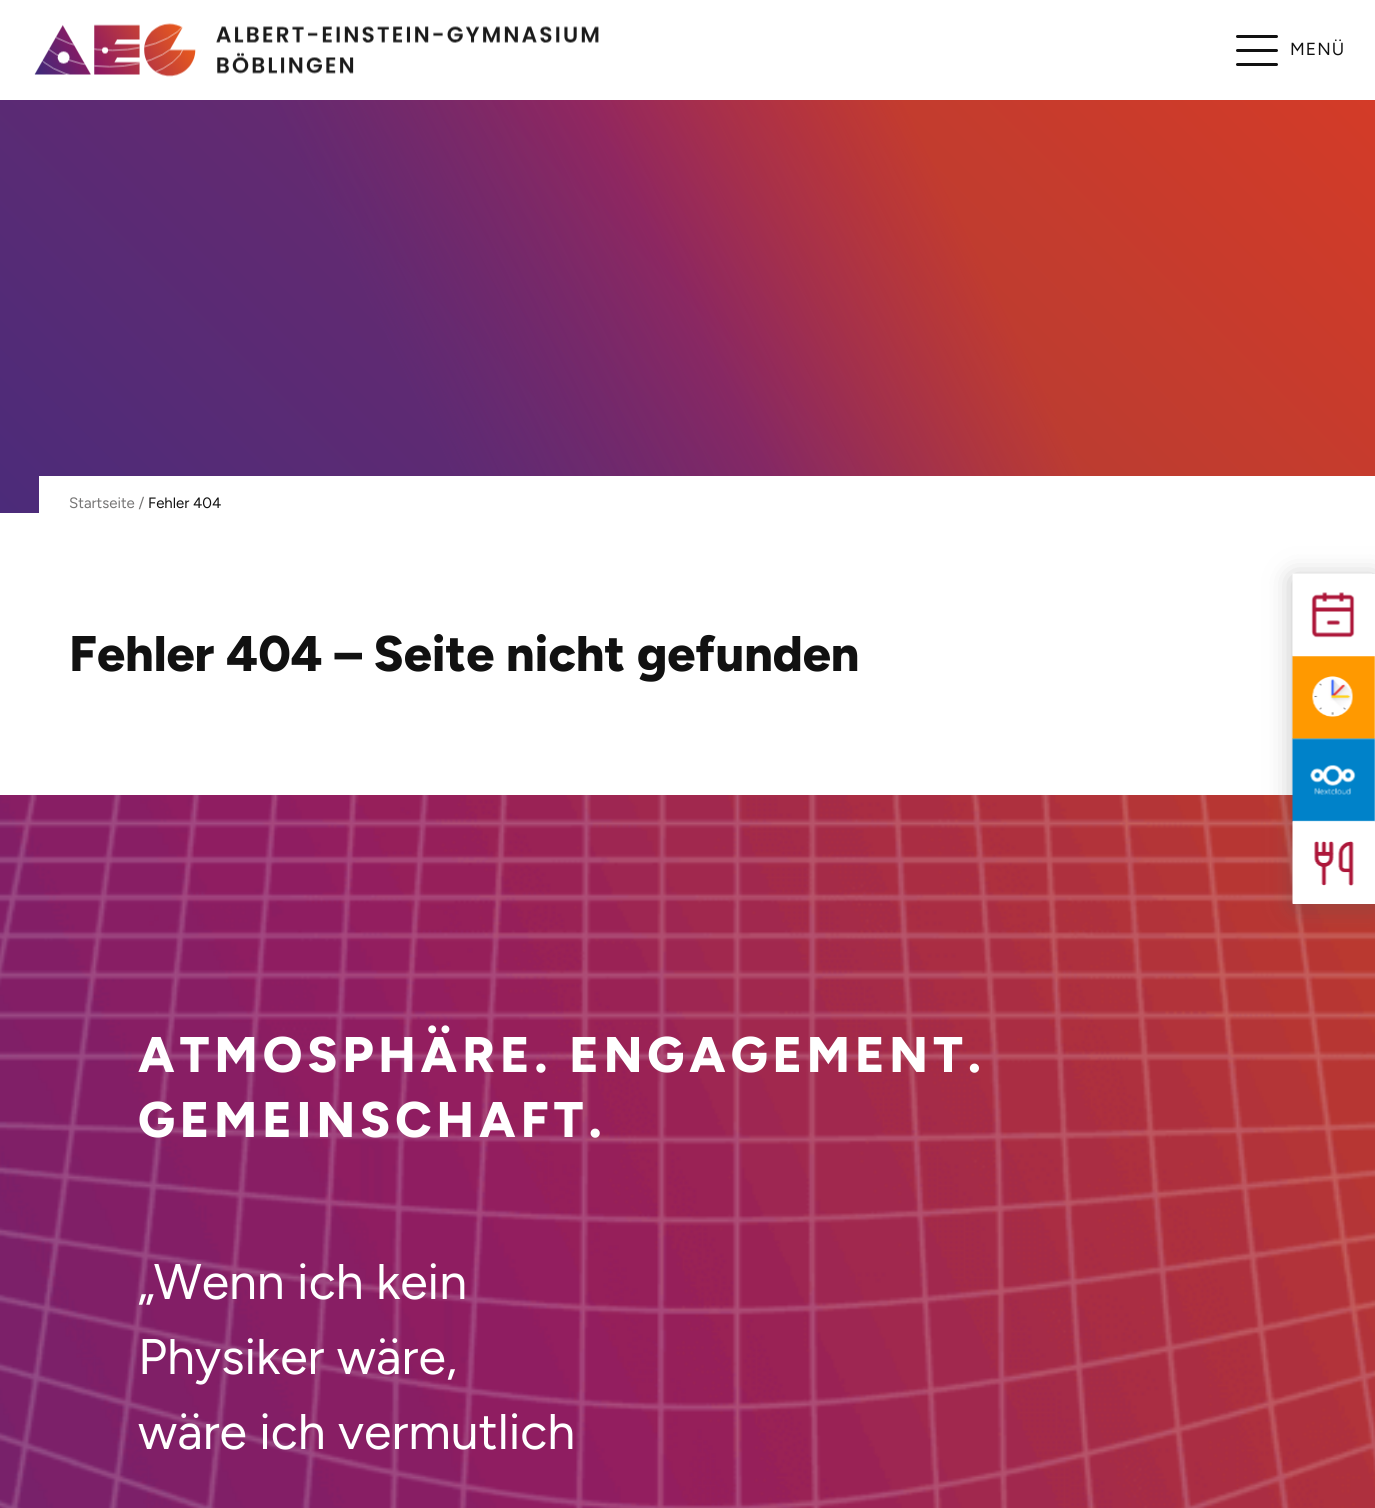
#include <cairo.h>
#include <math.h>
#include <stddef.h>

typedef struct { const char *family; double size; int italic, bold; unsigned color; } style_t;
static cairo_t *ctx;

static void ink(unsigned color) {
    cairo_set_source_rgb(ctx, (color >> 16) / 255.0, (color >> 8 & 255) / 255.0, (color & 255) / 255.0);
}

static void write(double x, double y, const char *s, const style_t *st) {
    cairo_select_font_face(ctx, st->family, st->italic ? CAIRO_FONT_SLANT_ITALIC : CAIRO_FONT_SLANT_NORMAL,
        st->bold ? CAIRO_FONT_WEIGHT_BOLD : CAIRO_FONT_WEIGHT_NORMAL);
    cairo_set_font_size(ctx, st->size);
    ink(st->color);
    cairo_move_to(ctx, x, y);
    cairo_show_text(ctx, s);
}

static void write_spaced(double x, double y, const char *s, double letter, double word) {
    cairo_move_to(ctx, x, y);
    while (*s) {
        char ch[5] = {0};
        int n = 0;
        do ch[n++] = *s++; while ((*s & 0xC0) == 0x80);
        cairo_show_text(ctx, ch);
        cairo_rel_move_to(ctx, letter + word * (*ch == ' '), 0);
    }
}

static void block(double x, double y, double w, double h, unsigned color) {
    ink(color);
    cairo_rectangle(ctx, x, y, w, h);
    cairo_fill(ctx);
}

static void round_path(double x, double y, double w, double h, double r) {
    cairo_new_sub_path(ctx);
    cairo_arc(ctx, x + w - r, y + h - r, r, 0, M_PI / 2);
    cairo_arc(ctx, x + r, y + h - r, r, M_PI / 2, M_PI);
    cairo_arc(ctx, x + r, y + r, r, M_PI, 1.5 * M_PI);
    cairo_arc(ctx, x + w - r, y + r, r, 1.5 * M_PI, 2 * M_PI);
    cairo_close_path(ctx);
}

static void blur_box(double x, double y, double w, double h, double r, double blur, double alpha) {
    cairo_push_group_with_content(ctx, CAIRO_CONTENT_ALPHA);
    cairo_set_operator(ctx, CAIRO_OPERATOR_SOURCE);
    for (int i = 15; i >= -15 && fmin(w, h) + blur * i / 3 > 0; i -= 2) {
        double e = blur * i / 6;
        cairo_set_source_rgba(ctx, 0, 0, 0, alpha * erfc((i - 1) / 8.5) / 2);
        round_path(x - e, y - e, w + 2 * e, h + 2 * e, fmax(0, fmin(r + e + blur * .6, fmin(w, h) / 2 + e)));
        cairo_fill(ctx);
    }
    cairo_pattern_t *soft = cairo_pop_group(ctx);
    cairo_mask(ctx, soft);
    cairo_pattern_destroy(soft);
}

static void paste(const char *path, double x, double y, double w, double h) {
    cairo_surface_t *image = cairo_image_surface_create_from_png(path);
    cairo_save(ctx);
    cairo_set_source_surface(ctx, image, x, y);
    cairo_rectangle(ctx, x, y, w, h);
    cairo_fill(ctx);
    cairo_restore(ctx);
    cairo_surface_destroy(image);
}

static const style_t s1 = {"Figtree", 15, 0, 0, 0x767575};
static const style_t s2 = {"Figtree", 15, 0, 0, 0x111111};
static const style_t s3 = {"Figtree ExtraBold", 50, 0, 0, 0x111111};
static const style_t s4 = {"Figtree", 50, 0, 0, 0xffffff};

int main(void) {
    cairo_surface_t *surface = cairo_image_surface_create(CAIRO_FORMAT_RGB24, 1375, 1508);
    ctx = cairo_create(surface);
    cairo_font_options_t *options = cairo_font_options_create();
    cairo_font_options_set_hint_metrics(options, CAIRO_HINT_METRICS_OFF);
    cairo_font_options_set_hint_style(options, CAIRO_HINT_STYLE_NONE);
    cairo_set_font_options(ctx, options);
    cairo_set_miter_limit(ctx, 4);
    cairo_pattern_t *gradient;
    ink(0xffffff);
    cairo_paint(ctx);
    paste("pic1.png", 34, 23, 565, 54);
    ink(0x111111);
    round_path(1236, 35, 42, 3, 1.5);
    cairo_fill(ctx);
    round_path(1236, 49, 42, 3, 1.5);
    cairo_fill(ctx);
    cairo_select_font_face(ctx, "Figtree", CAIRO_FONT_SLANT_NORMAL, CAIRO_FONT_WEIGHT_NORMAL);
    cairo_set_font_size(ctx, 17.5);
    write_spaced(1290, 55, "MENÜ", 1, 0);
    round_path(1236, 63, 42, 3, 1.5);
    cairo_fill(ctx);
    gradient = cairo_pattern_create_linear(241, 753, 1134, -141);
    cairo_pattern_add_color_stop_rgba(gradient, 0, 0.298, 0.169, 0.478, 1);
    cairo_pattern_add_color_stop_rgba(gradient, 1, 0.788, 0.141, 0.29, 1);
    cairo_set_source(ctx, gradient);
    cairo_pattern_destroy(gradient);
    cairo_rectangle(ctx, 0, 100, 1375, 413);
    cairo_fill(ctx);
    gradient = cairo_pattern_create_linear(51, 617, 1324, -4.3);
    cairo_pattern_add_color_stop_rgba(gradient, 0.3, 0.298, 0.169, 0.478, 0.5);
    cairo_pattern_add_color_stop_rgba(gradient, 0.5, 0.298, 0.169, 0.478, 0);
    cairo_pattern_add_color_stop_rgba(gradient, 0.5, 0.871, 0.318, 0.024, 0);
    cairo_pattern_add_color_stop_rgba(gradient, 0.7, 0.871, 0.318, 0.024, 0.5);
    cairo_set_source(ctx, gradient);
    cairo_pattern_destroy(gradient);
    cairo_rectangle(ctx, 0, 100, 1375, 413);
    cairo_fill(ctx);
    block(39, 476, 1336, 37, 0xffffff);
    write(69, 508, "Startseite /", &s1);
    write(148, 508, "Fehler 404", &s2);
    write(69, 671, "Fehler 404 – Seite nicht gefunden", &s3);
    paste("pic2.png", 0, 795, 1375, 713);
    ink(0xffffff);
    write_spaced(138, 1072, "ATMOSPHÄRE. ENGAGEMENT.", 5, 0);
    write_spaced(138, 1137, "GEMEINSCHAFT.", 5, 0);
    write(138, 1299, "„Wenn ich kein", &s4);
    write(138, 1374, "Physiker wäre,", &s4);
    write(138, 1449, "wäre ich vermutlich", &s4);
    ink(0x5b5a5a);
    blur_box(1293, 578, 82, 330, 0, 13, 0.4);
    block(1293, 574, 82, 330, 0xffffff);
    paste("pic3.png", 1292, 573, 80, 83);
    paste("pic4.png", 1292, 656, 83, 83);
    paste("pic5.png", 1292, 738, 83, 84);
    paste("pic6.png", 1292, 821, 83, 83);
    cairo_surface_write_to_png(surface, "screenshot.png");
    cairo_font_options_destroy(options);
    cairo_destroy(ctx);
    cairo_surface_destroy(surface);
    return 0;
}
